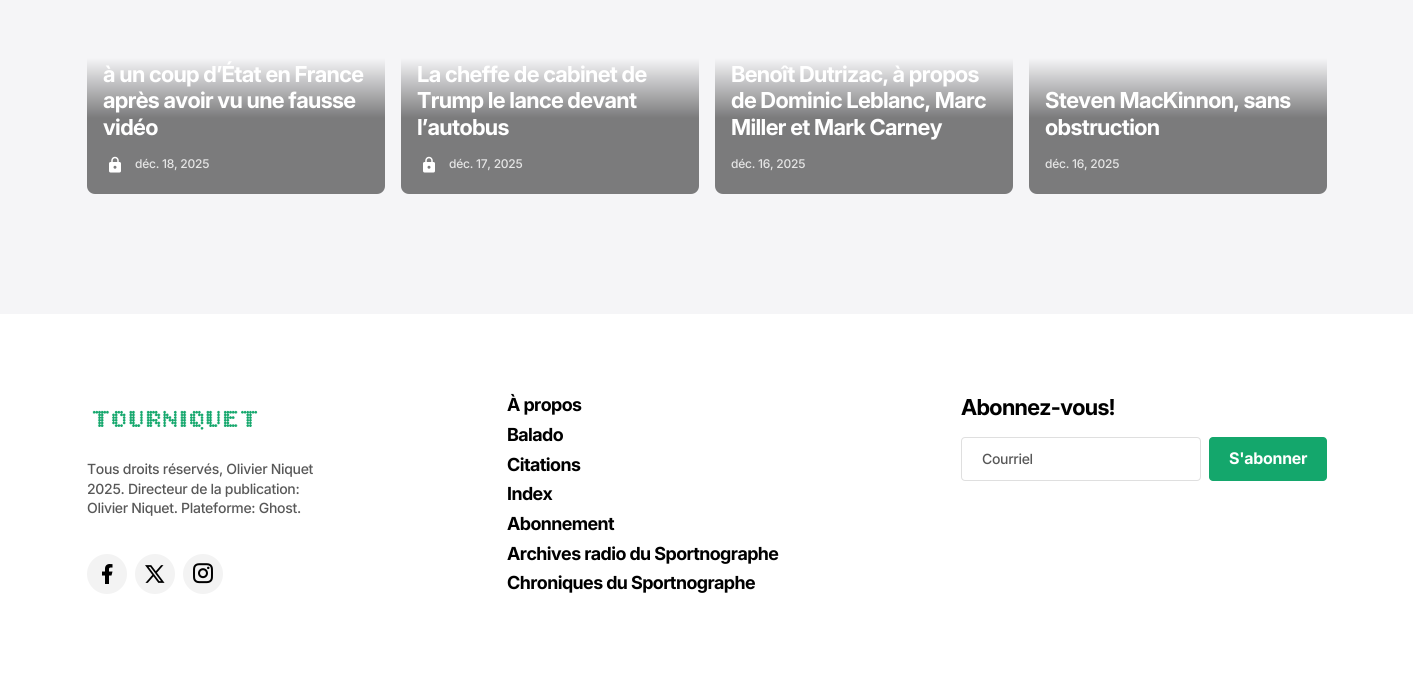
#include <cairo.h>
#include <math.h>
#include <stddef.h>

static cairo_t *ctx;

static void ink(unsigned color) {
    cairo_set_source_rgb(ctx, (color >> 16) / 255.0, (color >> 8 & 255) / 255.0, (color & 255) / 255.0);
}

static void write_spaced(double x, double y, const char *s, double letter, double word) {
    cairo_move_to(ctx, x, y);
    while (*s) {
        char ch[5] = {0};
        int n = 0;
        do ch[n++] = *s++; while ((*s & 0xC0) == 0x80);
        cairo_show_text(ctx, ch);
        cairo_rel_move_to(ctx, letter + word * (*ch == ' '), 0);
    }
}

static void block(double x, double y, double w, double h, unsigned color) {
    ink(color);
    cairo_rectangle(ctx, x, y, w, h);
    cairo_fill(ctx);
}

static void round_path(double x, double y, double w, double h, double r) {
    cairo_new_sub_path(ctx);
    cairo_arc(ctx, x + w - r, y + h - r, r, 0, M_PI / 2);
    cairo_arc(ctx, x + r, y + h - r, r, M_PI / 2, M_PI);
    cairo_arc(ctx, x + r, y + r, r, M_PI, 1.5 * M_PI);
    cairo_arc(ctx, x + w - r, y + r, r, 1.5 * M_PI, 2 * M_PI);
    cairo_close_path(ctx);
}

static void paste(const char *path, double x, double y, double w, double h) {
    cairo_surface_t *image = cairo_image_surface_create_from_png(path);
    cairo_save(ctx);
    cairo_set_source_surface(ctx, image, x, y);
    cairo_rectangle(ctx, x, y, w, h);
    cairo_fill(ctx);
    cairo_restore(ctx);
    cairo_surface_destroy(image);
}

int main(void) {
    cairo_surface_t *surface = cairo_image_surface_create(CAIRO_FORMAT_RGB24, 1413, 674);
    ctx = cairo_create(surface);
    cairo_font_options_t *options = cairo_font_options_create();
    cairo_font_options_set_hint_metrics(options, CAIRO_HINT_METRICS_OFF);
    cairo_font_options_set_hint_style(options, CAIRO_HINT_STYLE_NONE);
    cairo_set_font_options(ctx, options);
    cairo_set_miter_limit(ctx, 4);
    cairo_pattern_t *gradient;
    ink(0xf5f5f7);
    cairo_paint(ctx);
    gradient = cairo_pattern_create_linear(236, -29, 236, 194);
    cairo_pattern_add_color_stop_rgba(gradient, 0.39, 0.961, 0.961, 0.969, 1);
    cairo_pattern_add_color_stop_rgba(gradient, 0.66, 0.482, 0.482, 0.486, 1);
    cairo_set_source(ctx, gradient);
    cairo_pattern_destroy(gradient);
    round_path(87, -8, 298, 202, 8);
    cairo_fill(ctx);
    cairo_select_font_face(ctx, "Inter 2", CAIRO_FONT_SLANT_NORMAL, CAIRO_FONT_WEIGHT_BOLD);
    cairo_set_font_size(ctx, 22);
    ink(0xffffff);
    write_spaced(103, 82, "à un coup d’État en France", -0.65, 0);
    write_spaced(103, 108, "après avoir vu une fausse", -0.65, 0);
    write_spaced(103, 135, "vidéo", -0.65, 0);
    paste("pic1.png", 109, 156, 12, 17);
    cairo_select_font_face(ctx, "Inter Medium", CAIRO_FONT_SLANT_NORMAL, CAIRO_FONT_WEIGHT_NORMAL);
    cairo_set_font_size(ctx, 12);
    ink(0xe5e5e5);
    write_spaced(135, 168, "déc. 18, 2025", -0.25, 0);
    gradient = cairo_pattern_create_linear(550, -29, 550, 194);
    cairo_pattern_add_color_stop_rgba(gradient, 0.39, 0.961, 0.961, 0.969, 1);
    cairo_pattern_add_color_stop_rgba(gradient, 0.66, 0.482, 0.482, 0.486, 1);
    cairo_set_source(ctx, gradient);
    cairo_pattern_destroy(gradient);
    round_path(401, -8, 298, 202, 8);
    cairo_fill(ctx);
    cairo_select_font_face(ctx, "Inter 2", CAIRO_FONT_SLANT_NORMAL, CAIRO_FONT_WEIGHT_BOLD);
    cairo_set_font_size(ctx, 22);
    ink(0xffffff);
    write_spaced(417, 82, "La cheffe de cabinet de", -0.65, 0);
    write_spaced(417, 108, "Trump le lance devant", -0.65, 0);
    write_spaced(417, 135, "l’autobus", -0.65, 0);
    paste("pic1.png", 423, 156, 12, 17);
    cairo_select_font_face(ctx, "Inter Medium", CAIRO_FONT_SLANT_NORMAL, CAIRO_FONT_WEIGHT_NORMAL);
    cairo_set_font_size(ctx, 12);
    ink(0xe5e5e5);
    write_spaced(449, 168, "déc. 17, 2025", -0.25, 0);
    gradient = cairo_pattern_create_linear(864, -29, 864, 194);
    cairo_pattern_add_color_stop_rgba(gradient, 0.39, 0.961, 0.961, 0.969, 1);
    cairo_pattern_add_color_stop_rgba(gradient, 0.66, 0.482, 0.482, 0.486, 1);
    cairo_set_source(ctx, gradient);
    cairo_pattern_destroy(gradient);
    round_path(715, -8, 298, 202, 8);
    cairo_fill(ctx);
    cairo_select_font_face(ctx, "Inter 2", CAIRO_FONT_SLANT_NORMAL, CAIRO_FONT_WEIGHT_BOLD);
    cairo_set_font_size(ctx, 22);
    ink(0xffffff);
    write_spaced(731, 82, "Benoît Dutrizac, à propos", -0.65, 0);
    write_spaced(731, 108, "de Dominic Leblanc, Marc", -0.65, 0);
    write_spaced(731, 135, "Miller et Mark Carney", -0.65, 0);
    cairo_select_font_face(ctx, "Inter Medium", CAIRO_FONT_SLANT_NORMAL, CAIRO_FONT_WEIGHT_NORMAL);
    cairo_set_font_size(ctx, 12);
    ink(0xe5e5e5);
    write_spaced(731, 168, "déc. 16, 2025", -0.25, 0);
    gradient = cairo_pattern_create_linear(1178, -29, 1178, 194);
    cairo_pattern_add_color_stop_rgba(gradient, 0.39, 0.961, 0.961, 0.969, 1);
    cairo_pattern_add_color_stop_rgba(gradient, 0.66, 0.482, 0.482, 0.486, 1);
    cairo_set_source(ctx, gradient);
    cairo_pattern_destroy(gradient);
    round_path(1029, -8, 298, 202, 8);
    cairo_fill(ctx);
    cairo_select_font_face(ctx, "Inter 2", CAIRO_FONT_SLANT_NORMAL, CAIRO_FONT_WEIGHT_BOLD);
    cairo_set_font_size(ctx, 22);
    ink(0xffffff);
    write_spaced(1045, 108, "Steven MacKinnon, sans", -0.65, 0);
    write_spaced(1045, 135, "obstruction", -0.65, 0);
    cairo_select_font_face(ctx, "Inter Medium", CAIRO_FONT_SLANT_NORMAL, CAIRO_FONT_WEIGHT_NORMAL);
    cairo_set_font_size(ctx, 12);
    ink(0xe5e5e5);
    write_spaced(1045, 168, "déc. 16, 2025", -0.25, 0);
    block(0, 314, 1413, 360, 0xffffff);
    cairo_select_font_face(ctx, "Inter", CAIRO_FONT_SLANT_NORMAL, CAIRO_FONT_WEIGHT_BOLD);
    cairo_set_font_size(ctx, 18);
    ink(0x000000);
    write_spaced(507, 411, "À propos", -0.55, 0);
    write_spaced(507, 441, "Balado", -0.55, 0);
    write_spaced(507, 471, "Citations", -0.55, 0);
    write_spaced(507, 500, "Index", -0.55, 0);
    write_spaced(507, 530, "Abonnement", -0.55, 0);
    write_spaced(507, 560, "Archives radio du Sportnographe", -0.55, 0);
    write_spaced(507, 589, "Chroniques du Sportnographe", -0.55, 0);
    cairo_select_font_face(ctx, "Inter 2", CAIRO_FONT_SLANT_NORMAL, CAIRO_FONT_WEIGHT_BOLD);
    cairo_set_font_size(ctx, 22);
    write_spaced(961, 415, "Abonnez-vous!", -0.65, 0);
    round_path(961.5, 437.5, 239, 43, 3.5);
    ink(0xdfdfdf);
    cairo_set_line_width(ctx, 1);
    cairo_stroke(ctx);
    cairo_select_font_face(ctx, "Inter Medium", CAIRO_FONT_SLANT_NORMAL, CAIRO_FONT_WEIGHT_NORMAL);
    cairo_set_font_size(ctx, 14);
    ink(0x585858);
    write_spaced(982, 464, "Courriel", -0.3, 0);
    ink(0x14a76c);
    round_path(1209, 437, 118, 44, 4);
    cairo_fill(ctx);
    cairo_select_font_face(ctx, "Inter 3", CAIRO_FONT_SLANT_NORMAL, CAIRO_FONT_WEIGHT_BOLD);
    cairo_set_font_size(ctx, 16);
    ink(0xffffff);
    write_spaced(1229, 464, "S'abonner", -0.25, 0);
    paste("pic2.png", 92, 410, 166, 20);
    cairo_select_font_face(ctx, "Inter Medium", CAIRO_FONT_SLANT_NORMAL, CAIRO_FONT_WEIGHT_NORMAL);
    cairo_set_font_size(ctx, 14);
    ink(0x585858);
    write_spaced(87, 474, "Tous droits réservés, Olivier Niquet", -0.3, 0);
    write_spaced(87, 494, "2025. Directeur de la publication:", -0.3, 0);
    write_spaced(87, 513, "Olivier Niquet. Plateforme: Ghost.", -0.3, 0);
    ink(0xf3f3f3);
    cairo_new_path(ctx);
    cairo_arc(ctx, 107, 574, 20, 0, 2 * M_PI);
    cairo_fill(ctx);
    paste("pic3.png", 102, 564, 11, 20);
    cairo_arc(ctx, 155, 574, 20, 0, 2 * M_PI);
    cairo_fill(ctx);
    paste("pic4.png", 145, 565, 20, 18);
    cairo_arc(ctx, 203, 574, 20, 0, 2 * M_PI);
    cairo_fill(ctx);
    paste("pic5.png", 193, 563, 20, 21);
    cairo_surface_write_to_png(surface, "screenshot.png");
    cairo_font_options_destroy(options);
    cairo_destroy(ctx);
    cairo_surface_destroy(surface);
    return 0;
}
